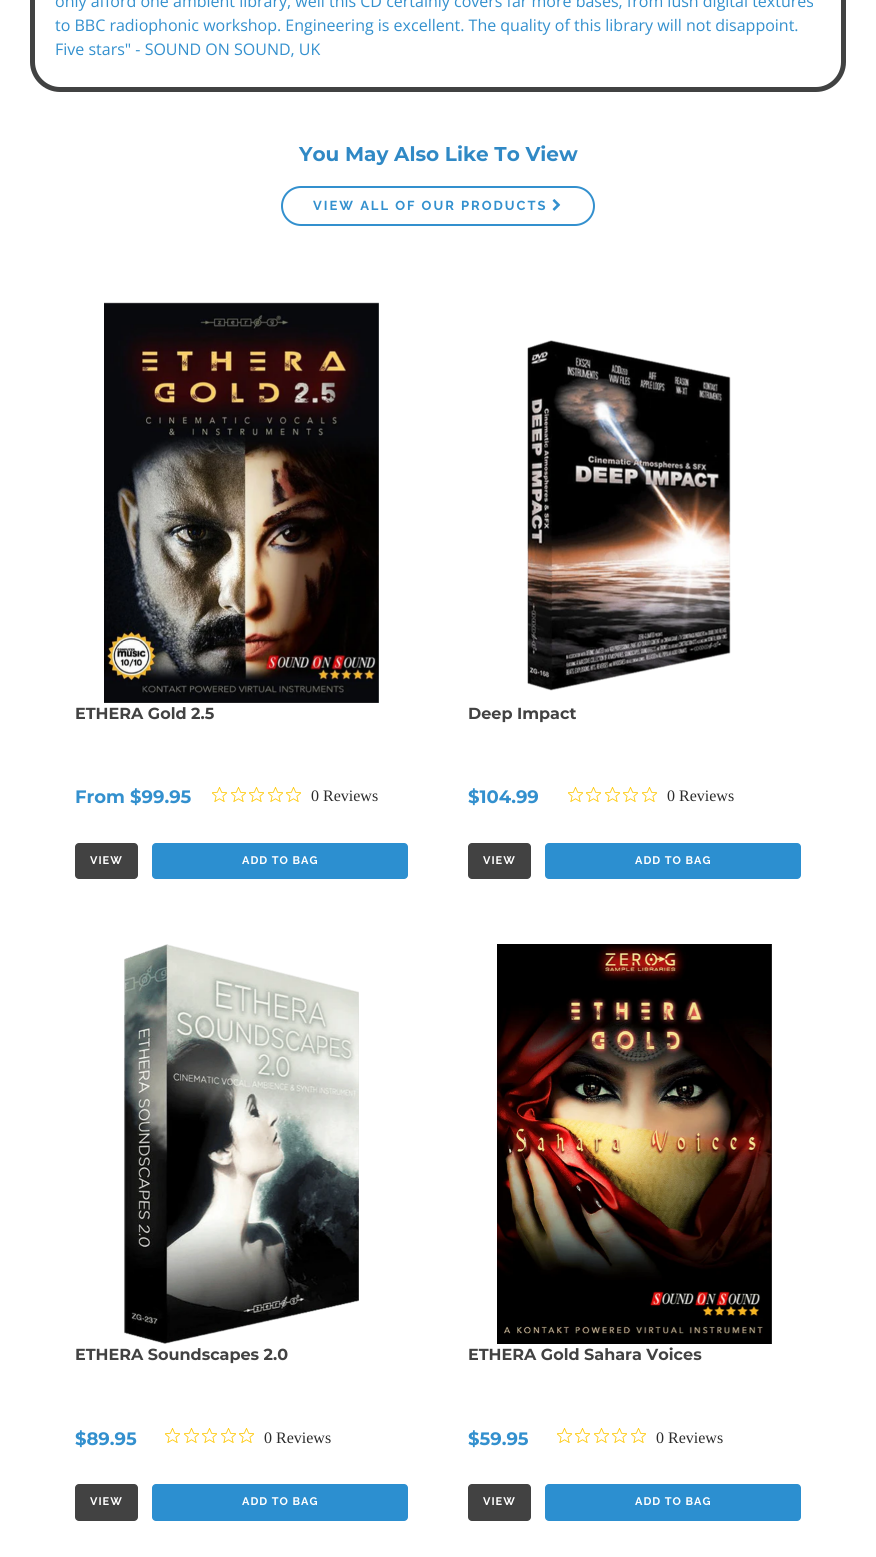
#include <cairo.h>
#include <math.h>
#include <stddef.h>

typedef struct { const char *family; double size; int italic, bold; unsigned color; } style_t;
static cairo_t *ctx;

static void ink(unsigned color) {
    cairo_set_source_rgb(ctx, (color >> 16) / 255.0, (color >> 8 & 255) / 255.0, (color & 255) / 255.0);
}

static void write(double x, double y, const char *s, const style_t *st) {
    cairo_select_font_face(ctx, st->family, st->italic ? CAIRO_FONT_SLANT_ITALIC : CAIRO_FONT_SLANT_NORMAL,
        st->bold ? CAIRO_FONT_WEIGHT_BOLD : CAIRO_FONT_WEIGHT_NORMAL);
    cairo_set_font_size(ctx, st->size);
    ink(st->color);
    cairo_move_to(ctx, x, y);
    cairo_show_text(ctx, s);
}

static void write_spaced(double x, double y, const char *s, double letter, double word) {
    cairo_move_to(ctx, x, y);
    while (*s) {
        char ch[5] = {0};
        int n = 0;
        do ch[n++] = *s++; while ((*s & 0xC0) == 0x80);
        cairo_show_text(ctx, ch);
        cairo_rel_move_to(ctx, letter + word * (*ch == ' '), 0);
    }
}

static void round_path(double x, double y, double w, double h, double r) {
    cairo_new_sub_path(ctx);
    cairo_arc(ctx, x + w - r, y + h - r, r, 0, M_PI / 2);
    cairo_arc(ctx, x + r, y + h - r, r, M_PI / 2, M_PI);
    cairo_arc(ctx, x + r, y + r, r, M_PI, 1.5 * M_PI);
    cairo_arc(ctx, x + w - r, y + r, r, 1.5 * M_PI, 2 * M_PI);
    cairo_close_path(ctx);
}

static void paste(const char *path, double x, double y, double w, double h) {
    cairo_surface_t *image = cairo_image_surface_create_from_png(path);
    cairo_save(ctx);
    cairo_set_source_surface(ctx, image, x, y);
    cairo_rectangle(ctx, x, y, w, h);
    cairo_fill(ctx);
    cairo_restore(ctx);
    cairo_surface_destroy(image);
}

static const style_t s1 = {"Open Sans", 16, 0, 0, 0x3390ce};
static const style_t s2 = {"Montserrat", 20, 0, 1, 0x3089c5};
static const style_t s3 = {"Montserrat", 16, 0, 1, 0x424242};
static const style_t s4 = {"Montserrat", 18, 0, 1, 0x3390ce};
static const style_t s5 = {"Liberation Serif", 16, 0, 0, 0x2c2c2c};

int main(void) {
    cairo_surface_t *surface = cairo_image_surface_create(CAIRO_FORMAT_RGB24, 876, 1557);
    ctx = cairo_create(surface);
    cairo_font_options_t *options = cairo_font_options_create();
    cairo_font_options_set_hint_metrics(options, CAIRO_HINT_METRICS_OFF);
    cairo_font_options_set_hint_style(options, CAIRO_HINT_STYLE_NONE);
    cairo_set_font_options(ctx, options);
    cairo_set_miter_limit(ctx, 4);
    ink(0xffffff);
    cairo_paint(ctx);
    cairo_new_path(ctx);
    cairo_move_to(ctx, 40, -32.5);
    cairo_line_to(ctx, 836, -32.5);
    cairo_curve_to(ctx, 840, -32.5, 843.5, -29, 843.5, -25);
    cairo_line_to(ctx, 843.5, 62);
    cairo_curve_to(ctx, 843.5, 77, 831, 89.5, 816, 89.5);
    cairo_line_to(ctx, 60, 89.5);
    cairo_curve_to(ctx, 45, 89.5, 32.5, 77, 32.5, 62);
    cairo_line_to(ctx, 32.5, -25);
    cairo_curve_to(ctx, 32.5, -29, 36, -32.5, 40, -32.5);
    cairo_close_path(ctx);
    ink(0x414242);
    cairo_set_line_width(ctx, 5);
    cairo_stroke(ctx);
    write(55, 7, "only afford one ambient library, well this CD certainly covers far more bases, from lush digital textures", &s1);
    write(55, 31, "to BBC radiophonic workshop. Engineering is excellent. The quality of this library will not disappoint.", &s1);
    write(55, 55, "Five stars\" - SOUND ON SOUND, UK", &s1);
    write(299, 161, "You May Also Like To View", &s2);
    round_path(282, 187, 312, 38, 19);
    ink(0x3390ce);
    cairo_set_line_width(ctx, 2);
    cairo_stroke(ctx);
    cairo_select_font_face(ctx, "Raleway", CAIRO_FONT_SLANT_NORMAL, CAIRO_FONT_WEIGHT_BOLD);
    cairo_set_font_size(ctx, 13);
    write_spaced(313, 210, "VIEW ALL OF OUR PRODUCTS", 2, 0);
    paste("pic1.png", 552, 199, 9, 12);
    paste("pic2.png", 104, 302, 275, 401);
    write(75, 719, "ETHERA Gold 2.5", &s3);
    write(75, 803, "From $99.95", &s4);
    paste("pic3.png", 212, 787, 15, 15);
    paste("pic3.png", 231, 787, 15, 15);
    paste("pic3.png", 249, 787, 15, 15);
    paste("pic3.png", 268, 787, 15, 15);
    paste("pic3.png", 286, 787, 15, 15);
    write(311, 801, "0 Reviews", &s5);
    ink(0x424242);
    round_path(75, 843, 63, 36, 4);
    cairo_fill(ctx);
    cairo_select_font_face(ctx, "Raleway", CAIRO_FONT_SLANT_NORMAL, CAIRO_FONT_WEIGHT_BOLD);
    cairo_set_font_size(ctx, 11);
    ink(0xffffff);
    write_spaced(90, 864, "VIEW", 1, 0);
    ink(0x2c8fd0);
    round_path(152, 843, 256, 36, 4);
    cairo_fill(ctx);
    ink(0xffffff);
    write_spaced(242, 864, "ADD TO BAG", 1, 0);
    paste("pic4.png", 527, 340, 204, 351);
    write(468, 719, "Deep Impact", &s3);
    write(468, 803, "$104.99", &s4);
    paste("pic3.png", 568, 787, 15, 15);
    paste("pic3.png", 586, 787, 15, 15);
    paste("pic3.png", 605, 787, 15, 15);
    paste("pic3.png", 623, 787, 15, 15);
    paste("pic3.png", 642, 787, 15, 15);
    write(667, 801, "0 Reviews", &s5);
    ink(0x424242);
    round_path(468, 843, 63, 36, 4);
    cairo_fill(ctx);
    cairo_select_font_face(ctx, "Raleway", CAIRO_FONT_SLANT_NORMAL, CAIRO_FONT_WEIGHT_BOLD);
    cairo_set_font_size(ctx, 11);
    ink(0xffffff);
    write_spaced(483, 864, "VIEW", 1, 0);
    ink(0x2c8fd0);
    round_path(545, 843, 256, 36, 4);
    cairo_fill(ctx);
    ink(0xffffff);
    write_spaced(635, 864, "ADD TO BAG", 1, 0);
    paste("pic5.png", 124, 944, 235, 400);
    write(75, 1360, "ETHERA Soundscapes 2.0", &s3);
    write(75, 1445, "$89.95", &s4);
    paste("pic3.png", 165, 1428, 15, 15);
    paste("pic3.png", 184, 1428, 15, 15);
    paste("pic3.png", 202, 1428, 15, 15);
    paste("pic3.png", 221, 1428, 15, 15);
    paste("pic3.png", 239, 1428, 15, 15);
    write(264, 1443, "0 Reviews", &s5);
    ink(0x424242);
    round_path(75, 1484, 63, 37, 4);
    cairo_fill(ctx);
    cairo_select_font_face(ctx, "Raleway", CAIRO_FONT_SLANT_NORMAL, CAIRO_FONT_WEIGHT_BOLD);
    cairo_set_font_size(ctx, 11);
    ink(0xffffff);
    write_spaced(90, 1505, "VIEW", 1, 0);
    ink(0x2c8fd0);
    round_path(152, 1484, 256, 37, 4);
    cairo_fill(ctx);
    ink(0xffffff);
    write_spaced(242, 1505, "ADD TO BAG", 1, 0);
    paste("pic6.png", 497, 944, 275, 400);
    write(468, 1360, "ETHERA Gold Sahara Voices", &s3);
    write(468, 1445, "$59.95", &s4);
    paste("pic3.png", 557, 1428, 15, 15);
    paste("pic3.png", 575, 1428, 15, 15);
    paste("pic3.png", 594, 1428, 15, 15);
    paste("pic3.png", 612, 1428, 15, 15);
    paste("pic3.png", 631, 1428, 15, 15);
    write(656, 1443, "0 Reviews", &s5);
    ink(0x424242);
    round_path(468, 1484, 63, 37, 4);
    cairo_fill(ctx);
    cairo_select_font_face(ctx, "Raleway", CAIRO_FONT_SLANT_NORMAL, CAIRO_FONT_WEIGHT_BOLD);
    cairo_set_font_size(ctx, 11);
    ink(0xffffff);
    write_spaced(483, 1505, "VIEW", 1, 0);
    ink(0x2c8fd0);
    round_path(545, 1484, 256, 37, 4);
    cairo_fill(ctx);
    ink(0xffffff);
    write_spaced(635, 1505, "ADD TO BAG", 1, 0);
    cairo_surface_write_to_png(surface, "screenshot.png");
    cairo_font_options_destroy(options);
    cairo_destroy(ctx);
    cairo_surface_destroy(surface);
    return 0;
}
